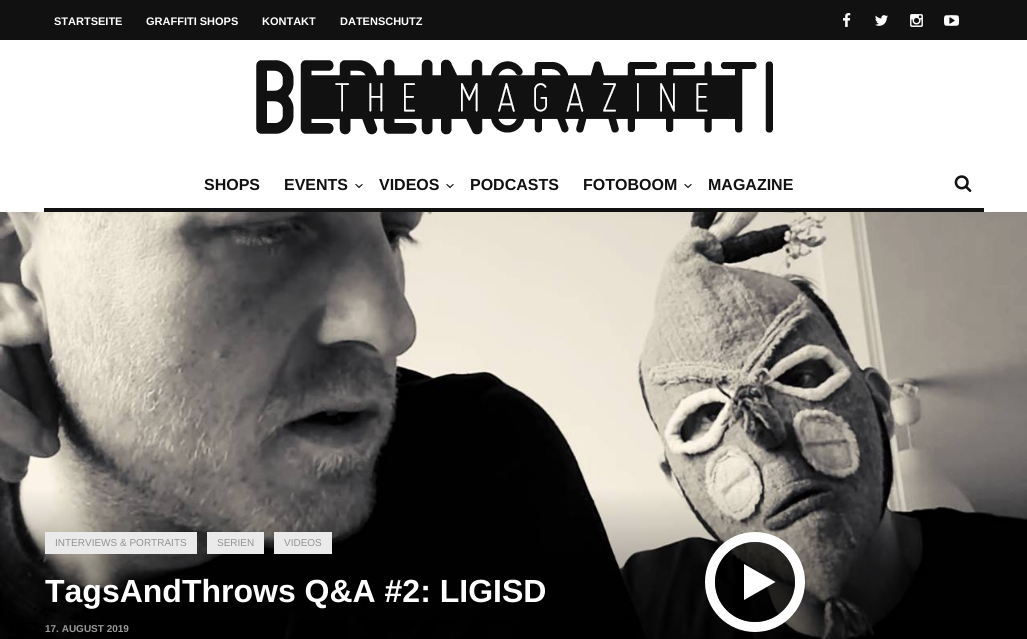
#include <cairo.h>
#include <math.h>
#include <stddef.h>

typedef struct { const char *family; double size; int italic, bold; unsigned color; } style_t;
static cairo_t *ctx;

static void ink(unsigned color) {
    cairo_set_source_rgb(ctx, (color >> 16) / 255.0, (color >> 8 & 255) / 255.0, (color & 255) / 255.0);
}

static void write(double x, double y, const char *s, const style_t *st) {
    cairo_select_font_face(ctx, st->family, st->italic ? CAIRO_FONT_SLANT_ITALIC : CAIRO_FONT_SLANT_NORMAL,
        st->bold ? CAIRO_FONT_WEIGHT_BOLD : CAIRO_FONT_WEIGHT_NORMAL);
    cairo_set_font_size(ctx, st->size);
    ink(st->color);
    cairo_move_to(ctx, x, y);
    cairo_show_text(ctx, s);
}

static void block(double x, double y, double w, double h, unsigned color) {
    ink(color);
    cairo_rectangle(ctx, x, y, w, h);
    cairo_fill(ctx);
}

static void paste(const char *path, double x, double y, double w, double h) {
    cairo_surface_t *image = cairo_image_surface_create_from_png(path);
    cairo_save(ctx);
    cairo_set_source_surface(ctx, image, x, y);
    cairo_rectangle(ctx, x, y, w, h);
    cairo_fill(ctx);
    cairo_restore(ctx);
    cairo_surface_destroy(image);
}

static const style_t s1 = {"Liberation Sans", 11, 0, 1, 0xffffff};
static const style_t s2 = {"Liberation Sans", 16, 0, 1, 0x111111};
static const style_t s3 = {"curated", 18, 0, 0, 0x111111};
static const style_t s4 = {"Liberation Sans", 10, 0, 0, 0x939292};
static const style_t s5 = {"Liberation Sans", 32, 0, 1, 0xffffff};
static const style_t s6 = {"Liberation Sans", 10, 0, 1, 0x9a9a9a};

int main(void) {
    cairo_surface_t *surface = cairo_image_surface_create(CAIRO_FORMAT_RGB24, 1027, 639);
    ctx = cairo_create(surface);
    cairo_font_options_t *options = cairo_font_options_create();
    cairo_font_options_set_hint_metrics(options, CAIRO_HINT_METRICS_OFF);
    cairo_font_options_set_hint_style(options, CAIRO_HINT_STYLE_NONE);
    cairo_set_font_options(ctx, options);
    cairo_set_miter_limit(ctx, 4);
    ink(0xffffff);
    cairo_paint(ctx);
    block(0, 0, 1027, 40, 0x111111);
    write(54, 25, "STARTSEITE", &s1);
    write(146, 25, "GRAFFITI SHOPS", &s1);
    write(262, 25, "KONTAKT", &s1);
    write(340, 25, "DATENSCHUTZ", &s1);
    paste("pic1.png", 843, 13, 8, 14);
    paste("pic2.png", 875, 15, 13, 11);
    paste("pic3.png", 910, 14, 13, 13);
    paste("pic4.png", 944, 15, 15, 11);
    paste("pic5.png", 256, 59, 517, 76);
    block(44, 208, 940, 4, 0x111111);
    write(204, 190, "SHOPS", &s2);
    write(284, 190, "EVENTS", &s2);
    paste("pic6.png", 355, 183, 8, 5);
    write(379, 190, "VIDEOS", &s2);
    paste("pic6.png", 446, 183, 8, 5);
    write(470, 190, "PODCASTS", &s2);
    write(583, 190, "FOTOBOOM", &s2);
    paste("pic6.png", 684, 183, 8, 5);
    write(708, 190, "MAGAZINE", &s2);
    write(954, 192, "2", &s3);
    paste("pic7.png", 0, 212, 1027, 427);
    block(45, 532, 152, 22, 0xeaeaea);
    write(55, 546, "INTERVIEWS & PORTRAITS", &s4);
    block(207, 532, 57, 22, 0xeaeaea);
    write(217, 546, "SERIEN", &s4);
    block(274, 532, 58, 22, 0xeaeaea);
    write(284, 546, "VIDEOS", &s4);
    write(45, 602, "TagsAndThrows Q&A #2: LIGISD", &s5);
    write(45, 632, "17. AUGUST 2019", &s6);
    cairo_new_path(ctx);
    cairo_arc(ctx, 755, 582, 45, 0, 2 * M_PI);
    ink(0xffffff);
    cairo_set_line_width(ctx, 10);
    cairo_stroke(ctx);
    cairo_set_source_rgba(ctx, 0, 0, 0, 0.7);
    cairo_arc(ctx, 755, 582, 40, 0, 2 * M_PI);
    cairo_fill(ctx);
    ink(0xffffff);
    cairo_set_fill_rule(ctx, CAIRO_FILL_RULE_EVEN_ODD);
    cairo_new_path(ctx);
    cairo_move_to(ctx, 744, 600);
    cairo_line_to(ctx, 744, 564);
    cairo_line_to(ctx, 775.5, 582);
    cairo_close_path(ctx);
    cairo_fill(ctx);
    cairo_surface_write_to_png(surface, "screenshot.png");
    cairo_font_options_destroy(options);
    cairo_destroy(ctx);
    cairo_surface_destroy(surface);
    return 0;
}
